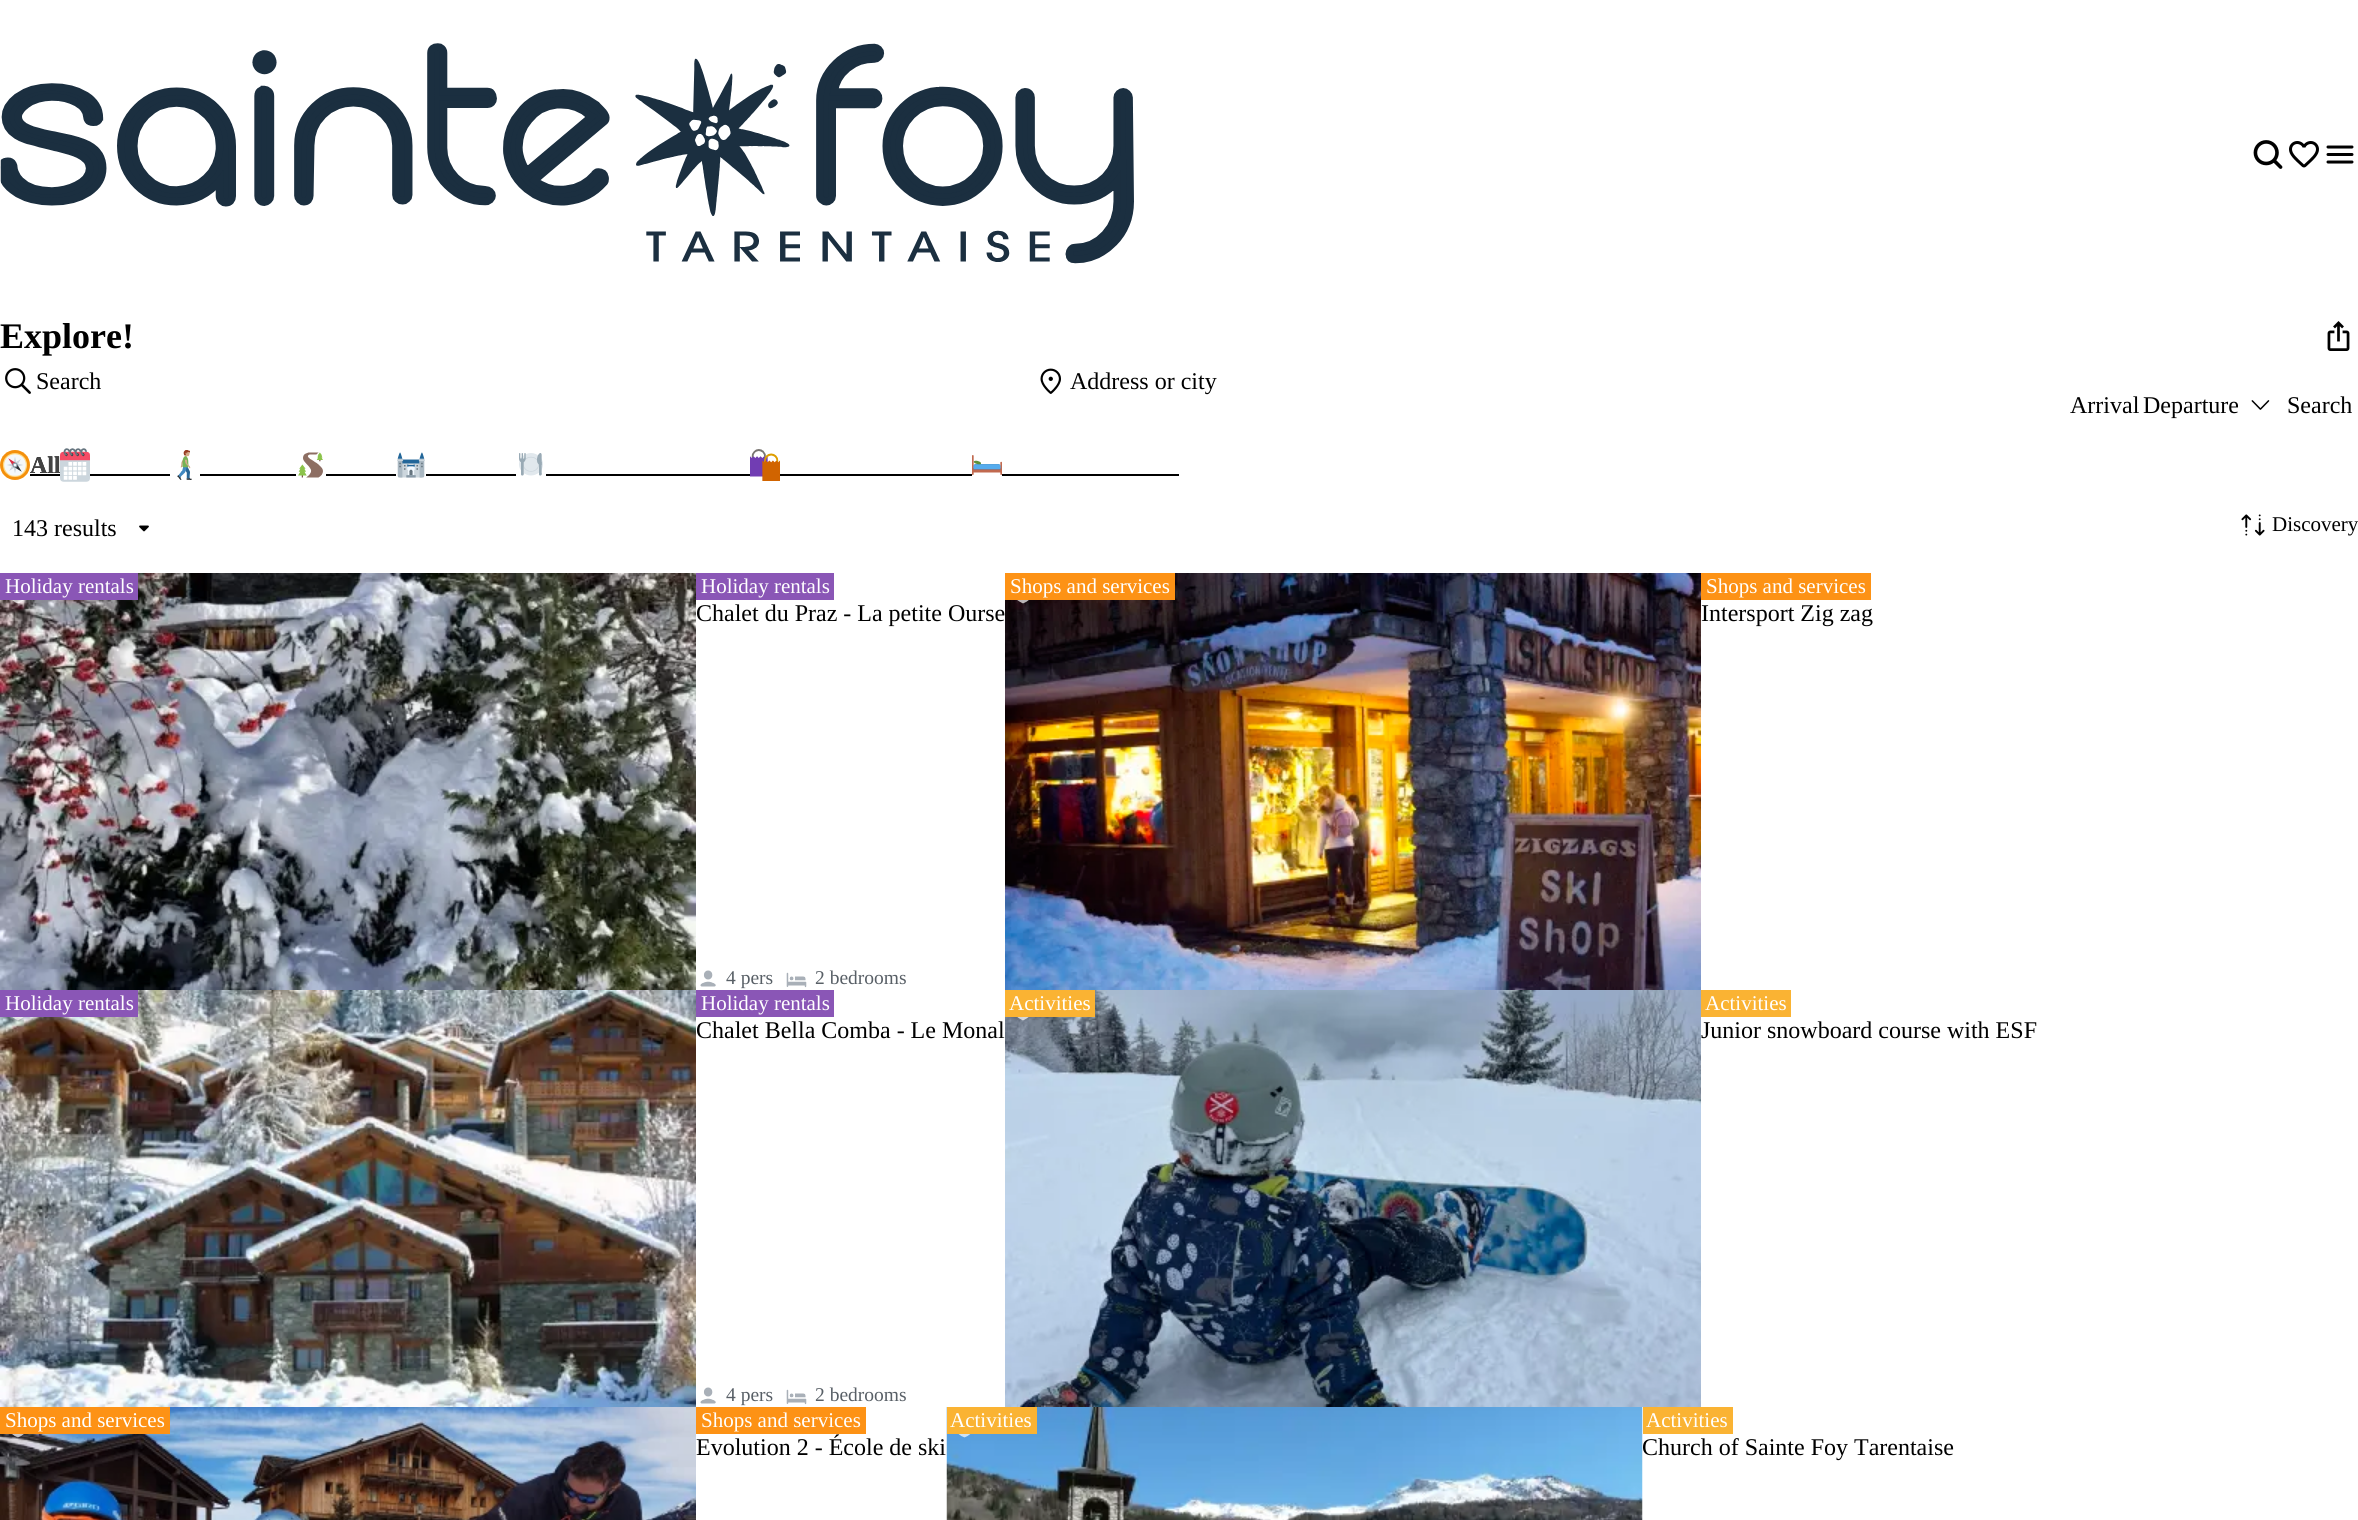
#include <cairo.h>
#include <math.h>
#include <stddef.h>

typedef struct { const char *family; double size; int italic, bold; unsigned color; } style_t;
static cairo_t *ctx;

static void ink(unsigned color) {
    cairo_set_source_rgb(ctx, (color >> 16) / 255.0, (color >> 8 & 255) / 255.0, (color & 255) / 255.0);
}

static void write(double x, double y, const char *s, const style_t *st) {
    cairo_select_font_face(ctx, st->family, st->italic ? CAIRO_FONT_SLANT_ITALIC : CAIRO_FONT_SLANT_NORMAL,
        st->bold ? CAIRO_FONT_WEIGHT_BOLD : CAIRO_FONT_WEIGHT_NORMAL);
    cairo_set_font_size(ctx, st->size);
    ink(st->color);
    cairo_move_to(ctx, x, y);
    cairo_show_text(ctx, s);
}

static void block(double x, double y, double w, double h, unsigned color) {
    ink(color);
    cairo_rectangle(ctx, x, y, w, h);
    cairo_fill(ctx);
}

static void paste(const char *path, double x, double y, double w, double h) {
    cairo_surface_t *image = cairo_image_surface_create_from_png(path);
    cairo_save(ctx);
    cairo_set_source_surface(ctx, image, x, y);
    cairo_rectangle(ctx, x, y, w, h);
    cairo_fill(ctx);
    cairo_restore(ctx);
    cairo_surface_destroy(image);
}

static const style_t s1 = {"Liberation Serif", 36, 0, 1, 0x000000};
static const style_t s2 = {"Liberation Serif", 24, 0, 0, 0x000000};
static const style_t s3 = {"Liberation Serif", 24, 0, 1, 0x000000};
static const style_t s4 = {"Liberation Serif", 24, 0, 1, 0x434343};
static const style_t s5 = {"Liberation Serif", 21, 0, 0, 0x000000};
static const style_t s6 = {"Liberation Serif", 21, 0, 0, 0xffffff};
static const style_t s7 = {"Liberation Serif", 19.5, 0, 0, 0x585f66};

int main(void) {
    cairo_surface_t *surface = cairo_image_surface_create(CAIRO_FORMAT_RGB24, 2358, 1520);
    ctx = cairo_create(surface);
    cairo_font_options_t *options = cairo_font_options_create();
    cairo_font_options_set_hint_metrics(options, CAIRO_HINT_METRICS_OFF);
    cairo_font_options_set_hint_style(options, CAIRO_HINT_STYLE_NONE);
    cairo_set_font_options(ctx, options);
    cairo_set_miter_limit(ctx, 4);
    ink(0xffffff);
    cairo_paint(ctx);
    paste("pic1.png", 0, 43, 1134, 221);
    paste("pic2.png", 2253, 140, 30, 29);
    paste("pic3.png", 2289, 141, 30, 27);
    paste("pic4.png", 2326, 145, 28, 19);
    write(0, 348, "Explore!", &s1);
    paste("pic5.png", 2327, 321, 23, 30);
    paste("pic6.png", 5, 368, 26, 26);
    write(36, 389, "Search", &s2);
    paste("pic7.png", 1040, 368, 21, 26);
    write(1070, 389, "Address or city", &s2);
    write(2070, 413, "Arrival", &s2);
    write(2143, 413, "Departure", &s2);
    paste("pic8.png", 2251, 400, 19, 10);
    write(2287, 413, "Search", &s2);
    paste("pic9.png", 0, 450, 30, 30);
    write(30, 473, "All", &s3);
    block(30, 474, 30, 2, 0x000000);
    write(30, 473, "All", &s4);
    paste("pic10.png", 60, 448, 30, 34);
    block(90, 474, 80, 2, 0x000000);
    paste("pic11.png", 177, 450, 15, 30);
    block(200, 474, 96, 2, 0x000000);
    paste("pic12.png", 298, 452, 25, 26);
    block(326, 474, 70, 2, 0x000000);
    paste("pic13.png", 397, 452, 28, 26);
    block(426, 474, 90, 2, 0x000000);
    paste("pic14.png", 519, 453, 24, 23);
    block(546, 474, 204, 2, 0x000000);
    paste("pic15.png", 750, 449, 30, 32);
    block(780, 474, 192, 2, 0x000000);
    paste("pic16.png", 972, 455, 30, 20);
    block(1002, 474, 177, 2, 0x000000);
    write(12, 536, "143 results", &s2);
    paste("pic17.png", 139, 525, 10, 7);
    paste("pic18.png", 2241, 514, 24, 22);
    write(2272, 531, "Discovery", &s5);
    paste("pic19.png", 0, 573, 696, 417);
    block(0, 573, 138, 27, 0x8a56b6);
    write(5, 593, "Holiday rentals", &s6);
    block(696, 573, 138, 27, 0x8a56b6);
    write(701, 593, "Holiday rentals", &s6);
    write(696, 621, "Chalet du Praz - La petite Ourse", &s2);
    paste("pic20.png", 700, 970, 16, 17);
    write(726, 984, "4 pers", &s7);
    paste("pic21.png", 786, 972, 21, 16);
    write(815, 984, "2 bedrooms", &s7);
    paste("pic22.png", 12, 600, 12, 4);
    paste("pic23.png", 1005, 573, 696, 417);
    block(1005, 573, 170, 27, 0xfd9215);
    write(1010, 593, "Shops and services", &s6);
    block(1701, 573, 170, 27, 0xfd9215);
    write(1706, 593, "Shops and services", &s6);
    write(1701, 621, "Intersport Zig zag", &s2);
    paste("pic24.png", 1017, 600, 12, 4);
    paste("pic25.png", 0, 990, 696, 417);
    block(0, 990, 138, 27, 0x8a56b6);
    write(5, 1010, "Holiday rentals", &s6);
    block(696, 990, 138, 27, 0x8a56b6);
    write(701, 1010, "Holiday rentals", &s6);
    write(696, 1038, "Chalet Bella Comba - Le Monal", &s2);
    paste("pic20.png", 700, 1387, 16, 17);
    write(726, 1401, "4 pers", &s7);
    paste("pic21.png", 786, 1389, 21, 16);
    write(815, 1401, "2 bedrooms", &s7);
    paste("pic26.png", 12, 1017, 12, 4);
    paste("pic27.png", 1005, 990, 696, 417);
    block(1005, 990, 90, 27, 0xfab333);
    write(1009, 1010, "Activities", &s6);
    block(1701, 990, 90, 27, 0xfab333);
    write(1705, 1010, "Activities", &s6);
    write(1701, 1038, "Junior snowboard course with ESF", &s2);
    paste("pic28.png", 1017, 1017, 12, 4);
    paste("pic29.png", 0, 1407, 696, 113);
    block(0, 1407, 170, 27, 0xfd9215);
    write(5, 1427, "Shops and services", &s6);
    block(696, 1407, 170, 27, 0xfd9215);
    write(701, 1427, "Shops and services", &s6);
    write(696, 1455, "Evolution 2 - École de ski", &s2);
    paste("pic30.png", 12, 1434, 12, 4);
    paste("pic31.png", 946, 1407, 697, 113);
    block(947, 1407, 90, 27, 0xfab333);
    write(950, 1427, "Activities", &s6);
    block(1643, 1407, 90, 27, 0xfab333);
    write(1646, 1427, "Activities", &s6);
    write(1642, 1455, "Church of Sainte Foy Tarentaise", &s2);
    paste("pic32.png", 958, 1434, 13, 4);
    cairo_surface_write_to_png(surface, "screenshot.png");
    cairo_font_options_destroy(options);
    cairo_destroy(ctx);
    cairo_surface_destroy(surface);
    return 0;
}
